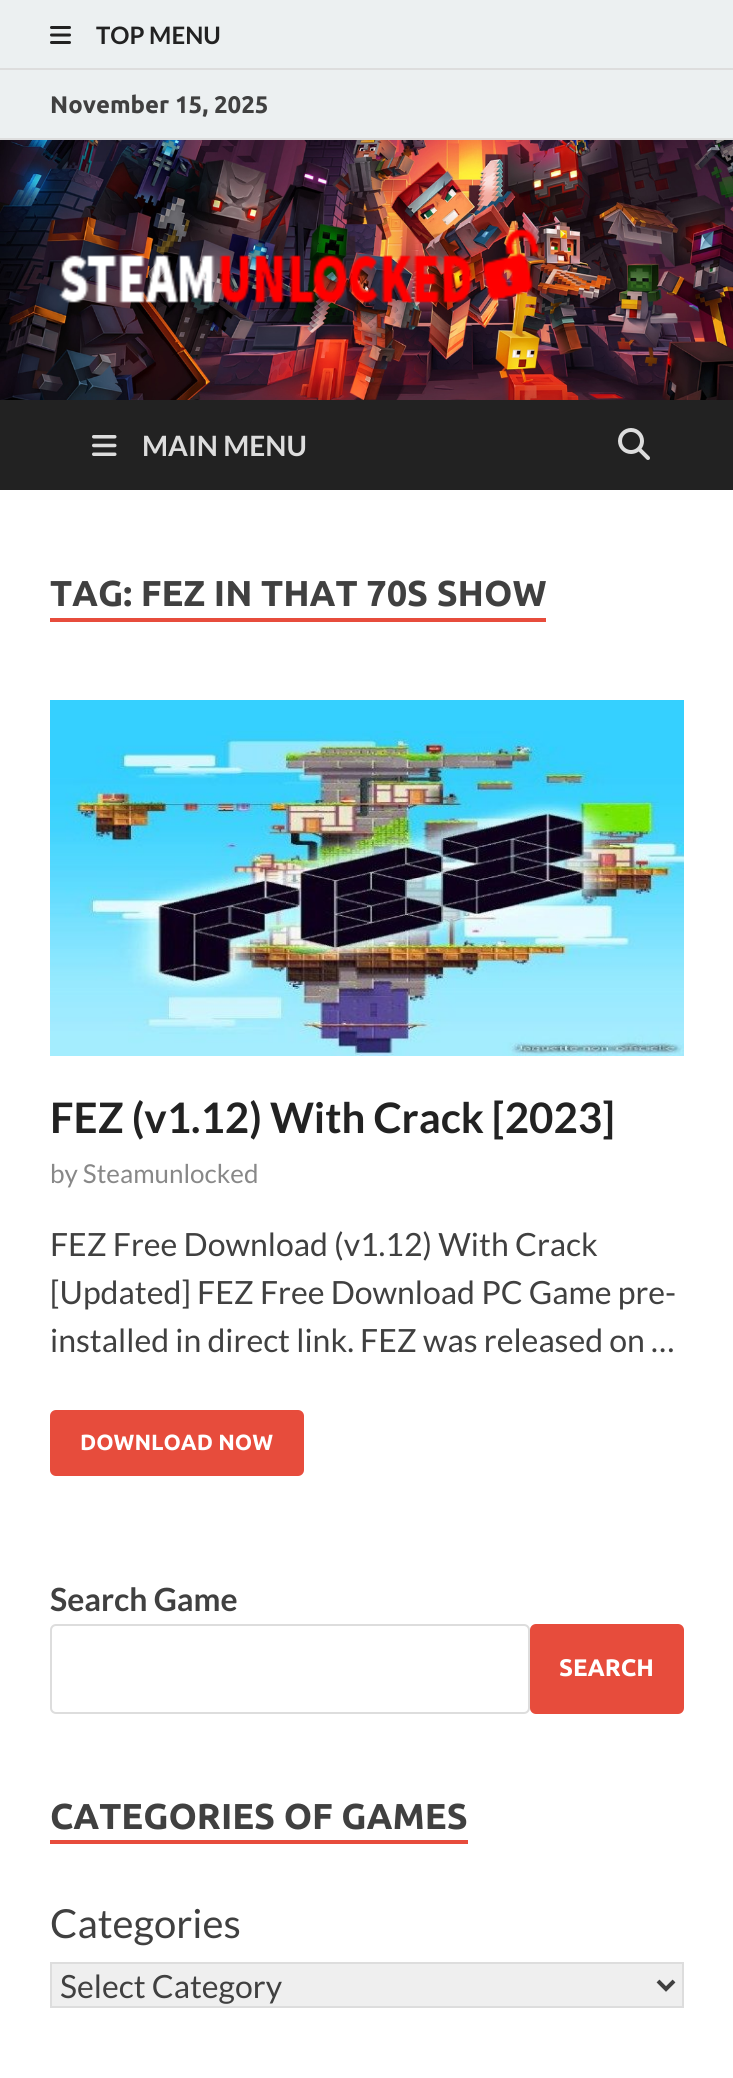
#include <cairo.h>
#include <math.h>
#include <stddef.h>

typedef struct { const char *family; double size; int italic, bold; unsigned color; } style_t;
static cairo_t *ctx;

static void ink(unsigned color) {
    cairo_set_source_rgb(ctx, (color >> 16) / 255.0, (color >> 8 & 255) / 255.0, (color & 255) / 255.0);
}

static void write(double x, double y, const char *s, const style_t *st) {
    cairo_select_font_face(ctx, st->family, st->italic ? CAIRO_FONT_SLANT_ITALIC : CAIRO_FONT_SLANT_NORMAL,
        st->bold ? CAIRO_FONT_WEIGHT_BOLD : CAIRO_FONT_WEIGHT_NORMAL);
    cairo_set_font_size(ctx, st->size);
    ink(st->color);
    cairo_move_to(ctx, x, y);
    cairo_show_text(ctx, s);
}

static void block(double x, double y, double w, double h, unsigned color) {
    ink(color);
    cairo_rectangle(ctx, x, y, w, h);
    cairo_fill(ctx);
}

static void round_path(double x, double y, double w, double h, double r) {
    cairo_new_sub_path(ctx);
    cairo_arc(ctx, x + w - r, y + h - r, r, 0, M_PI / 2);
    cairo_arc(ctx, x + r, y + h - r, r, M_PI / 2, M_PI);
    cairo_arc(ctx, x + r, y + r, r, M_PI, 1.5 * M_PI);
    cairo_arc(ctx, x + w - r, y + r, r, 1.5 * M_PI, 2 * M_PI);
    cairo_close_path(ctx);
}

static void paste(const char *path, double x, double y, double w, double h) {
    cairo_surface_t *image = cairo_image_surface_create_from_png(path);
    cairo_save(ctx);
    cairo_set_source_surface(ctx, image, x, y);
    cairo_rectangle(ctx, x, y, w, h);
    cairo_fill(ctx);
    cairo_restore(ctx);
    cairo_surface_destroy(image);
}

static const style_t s1 = {"Lato", 24, 0, 1, 0x222222};
static const style_t s2 = {"Ubuntu", 24, 0, 1, 0x404040};
static const style_t s3 = {"Lato", 28, 0, 1, 0xdddddd};
static const style_t s4 = {"Ubuntu", 36, 0, 1, 0x404040};
static const style_t s5 = {"Lato", 42, 0, 1, 0x222222};
static const style_t s6 = {"Lato", 26, 0, 0, 0x888888};
static const style_t s7 = {"Lato", 32, 0, 0, 0x404040};
static const style_t s8 = {"Ubuntu", 22, 0, 1, 0xffffff};
static const style_t s9 = {"Lato", 32, 0, 1, 0x404040};
static const style_t s10 = {"Ubuntu", 24, 0, 1, 0xffffff};
static const style_t s11 = {"Lato", 40, 0, 0, 0x404040};

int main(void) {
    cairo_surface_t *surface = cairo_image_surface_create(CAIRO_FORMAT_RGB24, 733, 2078);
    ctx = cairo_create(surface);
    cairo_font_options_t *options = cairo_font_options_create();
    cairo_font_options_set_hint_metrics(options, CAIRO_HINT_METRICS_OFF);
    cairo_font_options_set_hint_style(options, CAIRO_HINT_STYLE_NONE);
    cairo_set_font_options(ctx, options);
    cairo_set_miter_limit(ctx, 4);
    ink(0xffffff);
    cairo_paint(ctx);
    block(0, 0, 733, 68, 0xecf0f1);
    block(0, 68, 733, 2, 0xdddddd);
    paste("pic1.png", 50, 26, 21, 18);
    write(96, 44, "TOP MENU", &s1);
    block(0, 70, 733, 68, 0xecf0f1);
    block(0, 138, 733, 2, 0xdddddd);
    write(50, 113, "November 15, 2025", &s2);
    paste("pic2.png", 0, 140, 733, 260);
    paste("pic3.png", 59, 227, 480, 76);
    block(0, 400, 733, 90, 0x222222);
    paste("pic4.png", 92, 435, 25, 21);
    write(142, 456, "MAIN MENU", &s3);
    paste("pic5.png", 618, 428, 32, 32);
    write(50, 606, "TAG: FEZ IN THAT 70S SHOW", &s4);
    block(50, 618, 496, 4, 0xe74c3c);
    paste("pic6.png", 50, 700, 634, 356);
    write(50, 1133, "FEZ (v1.12) With Crack [2023]", &s5);
    write(50, 1183, "by Steamunlocked", &s6);
    write(50, 1256, "FEZ Free Download (v1.12) With Crack", &s7);
    write(50, 1304, "[Updated] FEZ Free Download PC Game pre-", &s7);
    write(50, 1352, "installed in direct link. FEZ was released on …", &s7);
    ink(0xe74c3c);
    round_path(50, 1410, 254, 66, 6);
    cairo_fill(ctx);
    write(80, 1450, "DOWNLOAD NOW", &s8);
    write(50, 1611, "Search Game", &s9);
    round_path(51, 1625, 478, 88, 5);
    ink(0xdddddd);
    cairo_stroke(ctx);
    ink(0xe74c3c);
    round_path(530, 1624, 154, 90, 6);
    cairo_fill(ctx);
    write(559, 1676, "SEARCH", &s10);
    block(50, 1840, 418, 4, 0xe74c3c);
    write(50, 1829, "CATEGORIES OF GAMES", &s4);
    write(50, 1938, "Categories", &s11);
    ink(0xefefef);
    cairo_rectangle(ctx, 51, 1963, 632, 44);
    cairo_fill_preserve(ctx);
    ink(0xdddddd);
    cairo_stroke(ctx);
    cairo_new_path(ctx);
    cairo_move_to(ctx, 658, 1981);
    cairo_line_to(ctx, 666, 1989);
    cairo_line_to(ctx, 674, 1981);
    ink(0x404040);
    cairo_set_line_width(ctx, 4);
    cairo_stroke(ctx);
    write(60, 1998, "Select Category", &s7);
    cairo_surface_write_to_png(surface, "screenshot.png");
    cairo_font_options_destroy(options);
    cairo_destroy(ctx);
    cairo_surface_destroy(surface);
    return 0;
}
